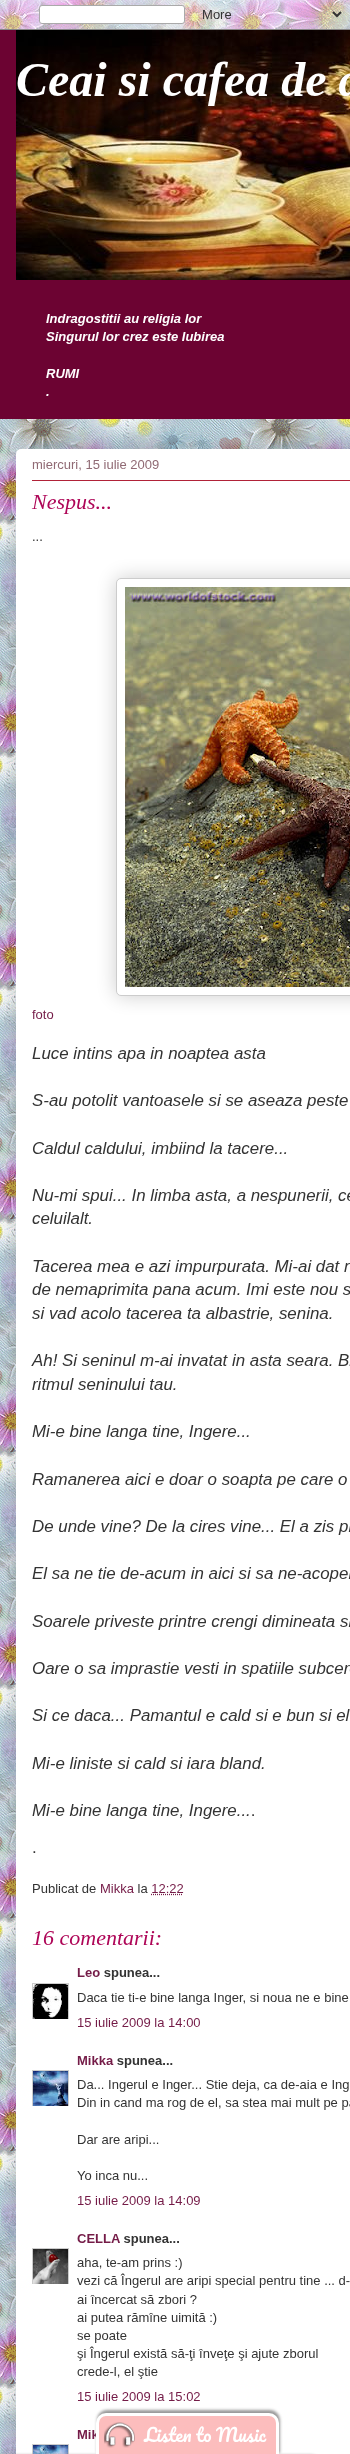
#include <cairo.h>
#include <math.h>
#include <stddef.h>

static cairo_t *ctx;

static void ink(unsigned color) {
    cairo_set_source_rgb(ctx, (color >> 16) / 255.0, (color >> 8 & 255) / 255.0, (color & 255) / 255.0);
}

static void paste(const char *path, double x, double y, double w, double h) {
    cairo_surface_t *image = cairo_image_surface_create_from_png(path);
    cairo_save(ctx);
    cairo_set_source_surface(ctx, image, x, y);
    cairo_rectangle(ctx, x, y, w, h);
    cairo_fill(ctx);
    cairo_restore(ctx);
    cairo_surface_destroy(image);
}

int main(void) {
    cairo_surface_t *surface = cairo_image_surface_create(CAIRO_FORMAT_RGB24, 350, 2454);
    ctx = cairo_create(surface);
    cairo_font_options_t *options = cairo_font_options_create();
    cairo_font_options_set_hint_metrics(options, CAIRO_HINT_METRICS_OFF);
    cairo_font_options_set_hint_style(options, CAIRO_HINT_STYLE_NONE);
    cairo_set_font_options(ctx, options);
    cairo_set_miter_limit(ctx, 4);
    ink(0xffffff);
    cairo_paint(ctx);
    paste("pic1.png", 0, 0, 350, 2454);
    cairo_surface_write_to_png(surface, "screenshot.png");
    cairo_font_options_destroy(options);
    cairo_destroy(ctx);
    cairo_surface_destroy(surface);
    return 0;
}
